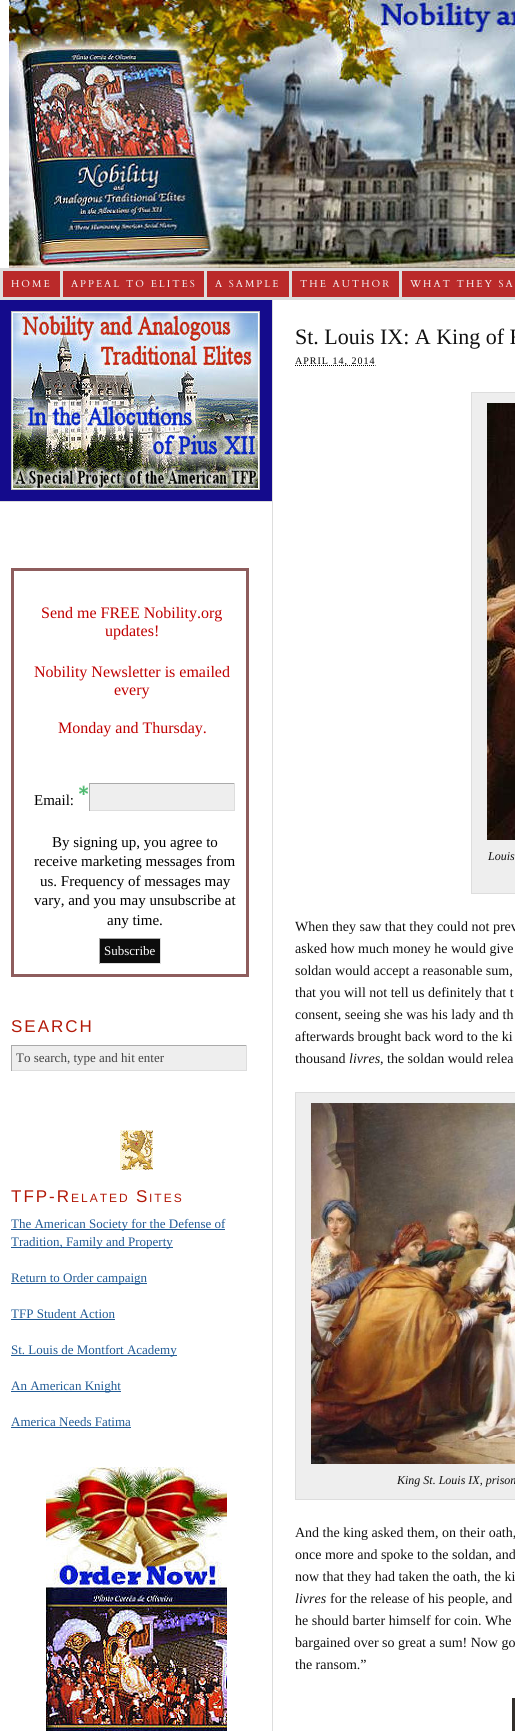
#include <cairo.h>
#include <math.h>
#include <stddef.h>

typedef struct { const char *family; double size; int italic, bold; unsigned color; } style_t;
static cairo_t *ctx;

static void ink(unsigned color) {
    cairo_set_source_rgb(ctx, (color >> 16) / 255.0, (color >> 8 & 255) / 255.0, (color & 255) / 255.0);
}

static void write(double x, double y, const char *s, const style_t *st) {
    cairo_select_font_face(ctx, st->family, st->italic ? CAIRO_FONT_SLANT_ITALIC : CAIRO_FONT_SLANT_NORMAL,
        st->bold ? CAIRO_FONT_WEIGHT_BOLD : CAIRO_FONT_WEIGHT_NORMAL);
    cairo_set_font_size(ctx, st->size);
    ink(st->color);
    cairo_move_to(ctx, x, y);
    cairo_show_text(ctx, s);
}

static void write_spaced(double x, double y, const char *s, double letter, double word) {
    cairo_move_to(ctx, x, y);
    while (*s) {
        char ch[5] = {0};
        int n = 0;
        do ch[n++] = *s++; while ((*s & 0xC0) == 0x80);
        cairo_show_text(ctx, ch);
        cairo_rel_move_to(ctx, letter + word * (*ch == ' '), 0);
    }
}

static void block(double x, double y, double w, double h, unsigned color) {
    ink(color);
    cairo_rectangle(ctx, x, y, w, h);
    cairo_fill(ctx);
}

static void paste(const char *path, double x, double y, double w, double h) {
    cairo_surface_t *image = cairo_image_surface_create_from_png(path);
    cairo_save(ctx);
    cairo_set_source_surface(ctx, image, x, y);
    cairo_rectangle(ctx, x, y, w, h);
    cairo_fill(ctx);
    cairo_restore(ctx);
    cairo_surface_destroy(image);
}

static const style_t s1 = {"Liberation Serif", 16, 0, 0, 0xc00000};
static const style_t s2 = {"Liberation Serif", 15, 0, 0, 0x000000};
static const style_t s3 = {"Liberation Serif", 13, 0, 0, 0xffffff};
static const style_t s4 = {"Liberation Serif", 13, 0, 0, 0x444444};
static const style_t s5 = {"Liberation Serif", 13, 0, 0, 0x215b96};
static const style_t s6 = {"Liberation Serif", 22, 0, 0, 0x111111};
static const style_t s7 = {"Liberation Serif", 12, 1, 0, 0x111111};
static const style_t s8 = {"Liberation Serif", 14, 0, 0, 0x111111};
static const style_t s9 = {"Liberation Serif", 14, 1, 0, 0x111111};

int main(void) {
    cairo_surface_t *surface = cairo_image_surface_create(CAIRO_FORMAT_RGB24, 515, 1731);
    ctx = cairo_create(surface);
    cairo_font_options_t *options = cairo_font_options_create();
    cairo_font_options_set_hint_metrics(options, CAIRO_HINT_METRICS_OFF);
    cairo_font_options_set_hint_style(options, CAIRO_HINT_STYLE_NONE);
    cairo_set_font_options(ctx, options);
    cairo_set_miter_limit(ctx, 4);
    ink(0xffffff);
    cairo_paint(ctx);
    paste("pic1.png", 9, 0, 506, 268);
    block(0, 297, 515, 3, 0xdddddd);
    block(0, 268, 3, 32, 0xdddddd);
    block(3, 271, 57, 26, 0xba2a2a);
    block(3, 268, 512, 3, 0xdddddd);
    block(60, 268, 3, 32, 0xdddddd);
    cairo_select_font_face(ctx, "Cardo", CAIRO_FONT_SLANT_NORMAL, CAIRO_FONT_WEIGHT_NORMAL);
    cairo_set_font_size(ctx, 10);
    ink(0xf7f7f7);
    write_spaced(11, 287, "HOME", 2, 0);
    block(63, 271, 141, 26, 0xba2a2a);
    block(204, 268, 3, 32, 0xdddddd);
    ink(0xf7f7f7);
    write_spaced(71, 287, "APPEAL TO ELITES", 2, 0);
    block(207, 271, 82, 26, 0xba2a2a);
    block(289, 268, 3, 32, 0xdddddd);
    ink(0xf7f7f7);
    write_spaced(215, 287, "A SAMPLE", 2, 0);
    block(292, 271, 107, 26, 0xba2a2a);
    block(399, 268, 3, 32, 0xdddddd);
    ink(0xf7f7f7);
    write_spaced(300, 287, "THE AUTHOR", 2, 0);
    block(402, 271, 113, 26, 0xba2a2a);
    ink(0xf7f7f7);
    write_spaced(410, 287, "WHAT THEY SA", 2, 0);
    block(272, 300, 1, 1431, 0xdddddd);
    block(0, 300, 272, 201, 0x140b8c);
    block(0, 501, 272, 1, 0xdddddd);
    ink(0xffffff);
    cairo_rectangle(ctx, 11.5, 311.5, 248, 178);
    cairo_fill_preserve(ctx);
    ink(0xbbbbbb);
    cairo_set_line_width(ctx, 1);
    cairo_stroke(ctx);
    paste("pic2.png", 13, 313, 245, 175);
    cairo_rectangle(ctx, 12.5, 569.5, 235, 406);
    ink(0x8e5d5d);
    cairo_set_line_width(ctx, 3);
    cairo_stroke(ctx);
    write(41, 618, "Send me FREE Nobility.org", &s1);
    write(105, 636, "updates!", &s1);
    write(34, 677, "Nobility Newsletter is emailed", &s1);
    write(114, 695, "every", &s1);
    write(58, 733, "Monday and Thursday.", &s1);
    paste("pic3.png", 79, 785, 10, 10);
    block(90, 784, 144, 26, 0xeeeeee);
    block(89, 783, 146, 1, 0xaaaaaa);
    block(234, 783, 1, 28, 0xdddddd);
    block(89, 810, 146, 1, 0xdddddd);
    block(89, 783, 1, 28, 0xaaaaaa);
    write(34, 805, "Email:", &s2);
    write(52, 847, "By signing up, you agree to", &s2);
    write(34, 866, "receive marketing messages from", &s2);
    write(40, 886, "us. Frequency of messages may", &s2);
    write(34, 905, "vary, and you may unsubscribe at", &s2);
    write(107, 925, "any time.", &s2);
    block(100, 939, 60, 24, 0x0c0c0c);
    block(99, 938, 62, 1, 0xaaaaaa);
    block(160, 938, 1, 26, 0xdddddd);
    block(99, 963, 62, 1, 0xdddddd);
    block(99, 938, 1, 26, 0xaaaaaa);
    write(104, 955, "Subscribe", &s3);
    cairo_select_font_face(ctx, "Liberation Sans", CAIRO_FONT_SLANT_NORMAL, CAIRO_FONT_WEIGHT_NORMAL);
    cairo_set_font_size(ctx, 17);
    ink(0xb31a09);
    write_spaced(11, 1032, "SEARCH", 2, 0);
    block(12, 1046, 234, 24, 0xeeeeee);
    block(11, 1045, 236, 1, 0xaaaaaa);
    block(246, 1045, 1, 26, 0xdddddd);
    block(11, 1070, 236, 1, 0xdddddd);
    block(11, 1045, 1, 26, 0xaaaaaa);
    write(16, 1062, "To search, type and hit enter", &s4);
    paste("pic4.png", 120, 1130, 33, 40);
    cairo_select_font_face(ctx, "Liberation Sans", CAIRO_FONT_SLANT_NORMAL, CAIRO_FONT_WEIGHT_NORMAL);
    cairo_set_font_size(ctx, 17);
    ink(0xb31a09);
    write_spaced(11, 1202, "TFP-R", 2, 0);
    cairo_set_font_size(ctx, 12);
    write_spaced(71, 1202, "ELATED", 2, 0);
    cairo_set_font_size(ctx, 17);
    write_spaced(136, 1202, "S", 2, 0);
    cairo_set_font_size(ctx, 12);
    write_spaced(149, 1202, "ITES", 2, 0);
    block(11, 1229, 214, 1, 0x215b96);
    write(11, 1228, "The American Society for the Defense of", &s5);
    block(11, 1247, 162, 1, 0x215b96);
    write(11, 1246, "Tradition, Family and Property", &s5);
    block(11, 1283, 136, 1, 0x215b96);
    write(11, 1282, "Return to Order campaign", &s5);
    write(11, 1318, "TFP Student Action", &s5);
    block(11, 1319, 104, 1, 0x215b96);
    block(11, 1355, 166, 1, 0x215b96);
    write(11, 1354, "St. Louis de Montfort Academy", &s5);
    block(11, 1391, 110, 1, 0x215b96);
    write(11, 1390, "An American Knight", &s5);
    write(11, 1426, "America Needs Fatima", &s5);
    block(11, 1427, 120, 1, 0x215b96);
    paste("pic5.png", 46, 1467, 181, 264);
    write(295, 344, "St. Louis IX: A King of F", &s6);
    cairo_new_path(ctx);
    cairo_move_to(ctx, 295, 365.5);
    cairo_line_to(ctx, 375.5, 365.5);
    ink(0x000000);
    cairo_set_line_width(ctx, 1);
    cairo_set_dash(ctx, (double[]){1, 1}, 2, 0);
    cairo_stroke(ctx);
    cairo_set_font_size(ctx, 10);
    write_spaced(295, 364, "APRIL 14, 2014", 1, 0);
    ink(0xeeeeee);
    cairo_rectangle(ctx, 471.5, 392.5, 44, 501);
    cairo_fill_preserve(ctx);
    ink(0xdddddd);
    cairo_set_dash(ctx, NULL, 0, 0);
    cairo_stroke(ctx);
    paste("pic6.png", 487, 403, 28, 437);
    write(488, 860, "Louis", &s7);
    write(295, 931, "When they saw that they could not prev", &s8);
    write(295, 953, "asked how much money he would give", &s8);
    write(295, 975, "soldan would accept a reasonable sum,", &s8);
    write(295, 997, "that you will not tell us definitely that t", &s8);
    write(295, 1019, "consent, seeing she was his lady and th", &s8);
    write(295, 1041, "afterwards brought back word to the ki", &s8);
    write(295, 1063, "thousand", &s8);
    write(349, 1063, "livres", &s9);
    write(380, 1063, ", the soldan would relea", &s8);
    ink(0xeeeeee);
    cairo_rectangle(ctx, 295.5, 1092.5, 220, 407);
    cairo_fill_preserve(ctx);
    ink(0xdddddd);
    cairo_stroke(ctx);
    paste("pic7.png", 311, 1103, 204, 361);
    write(397, 1484, "King St. Louis IX, prison", &s7);
    write(295, 1537, "And the king asked them, on their oath,", &s8);
    write(295, 1559, "once more and spoke to the soldan, and", &s8);
    write(295, 1581, "now that they had taken the oath, the ki", &s8);
    write(295, 1603, "livres", &s9);
    write(330, 1603, "for the release of his people, and", &s8);
    write(295, 1625, "he should barter himself for coin. Whe", &s8);
    write(295, 1647, "bargained over so great a sum! Now go", &s8);
    write(295, 1669, "the ransom.”", &s8);
    block(512, 1698, 3, 33, 0x322e2b);
    cairo_surface_write_to_png(surface, "screenshot.png");
    cairo_font_options_destroy(options);
    cairo_destroy(ctx);
    cairo_surface_destroy(surface);
    return 0;
}
